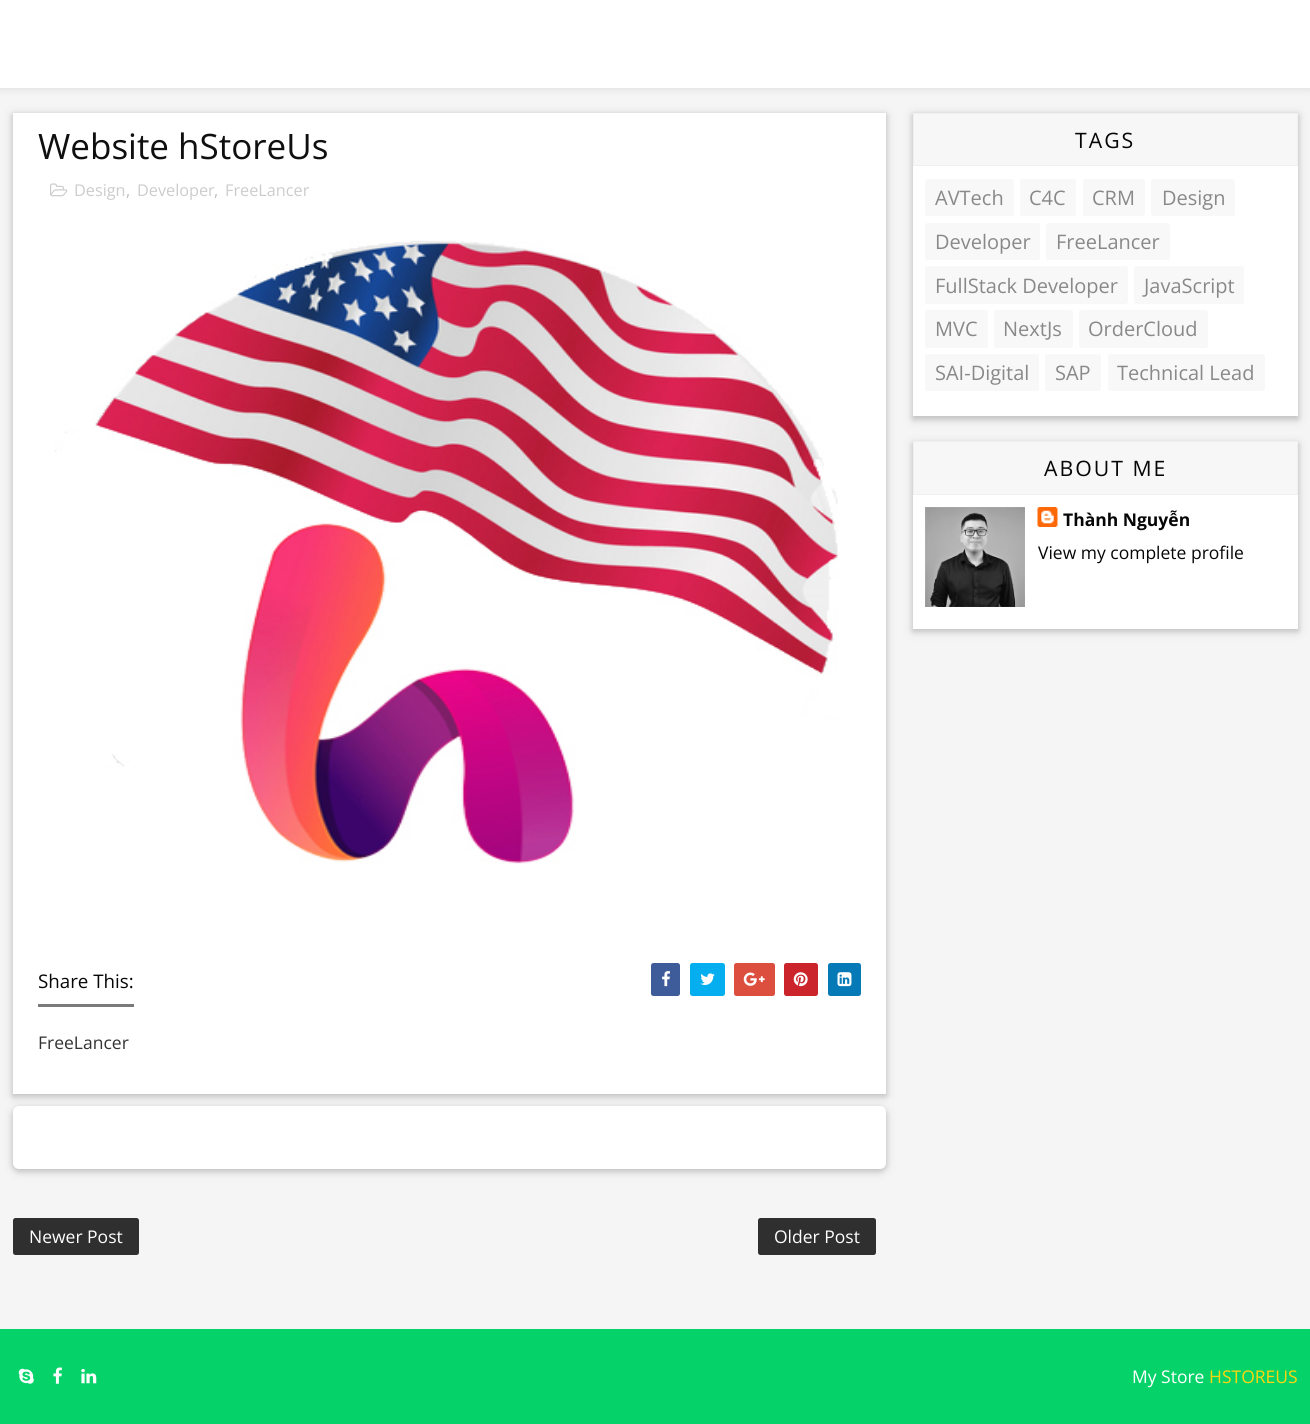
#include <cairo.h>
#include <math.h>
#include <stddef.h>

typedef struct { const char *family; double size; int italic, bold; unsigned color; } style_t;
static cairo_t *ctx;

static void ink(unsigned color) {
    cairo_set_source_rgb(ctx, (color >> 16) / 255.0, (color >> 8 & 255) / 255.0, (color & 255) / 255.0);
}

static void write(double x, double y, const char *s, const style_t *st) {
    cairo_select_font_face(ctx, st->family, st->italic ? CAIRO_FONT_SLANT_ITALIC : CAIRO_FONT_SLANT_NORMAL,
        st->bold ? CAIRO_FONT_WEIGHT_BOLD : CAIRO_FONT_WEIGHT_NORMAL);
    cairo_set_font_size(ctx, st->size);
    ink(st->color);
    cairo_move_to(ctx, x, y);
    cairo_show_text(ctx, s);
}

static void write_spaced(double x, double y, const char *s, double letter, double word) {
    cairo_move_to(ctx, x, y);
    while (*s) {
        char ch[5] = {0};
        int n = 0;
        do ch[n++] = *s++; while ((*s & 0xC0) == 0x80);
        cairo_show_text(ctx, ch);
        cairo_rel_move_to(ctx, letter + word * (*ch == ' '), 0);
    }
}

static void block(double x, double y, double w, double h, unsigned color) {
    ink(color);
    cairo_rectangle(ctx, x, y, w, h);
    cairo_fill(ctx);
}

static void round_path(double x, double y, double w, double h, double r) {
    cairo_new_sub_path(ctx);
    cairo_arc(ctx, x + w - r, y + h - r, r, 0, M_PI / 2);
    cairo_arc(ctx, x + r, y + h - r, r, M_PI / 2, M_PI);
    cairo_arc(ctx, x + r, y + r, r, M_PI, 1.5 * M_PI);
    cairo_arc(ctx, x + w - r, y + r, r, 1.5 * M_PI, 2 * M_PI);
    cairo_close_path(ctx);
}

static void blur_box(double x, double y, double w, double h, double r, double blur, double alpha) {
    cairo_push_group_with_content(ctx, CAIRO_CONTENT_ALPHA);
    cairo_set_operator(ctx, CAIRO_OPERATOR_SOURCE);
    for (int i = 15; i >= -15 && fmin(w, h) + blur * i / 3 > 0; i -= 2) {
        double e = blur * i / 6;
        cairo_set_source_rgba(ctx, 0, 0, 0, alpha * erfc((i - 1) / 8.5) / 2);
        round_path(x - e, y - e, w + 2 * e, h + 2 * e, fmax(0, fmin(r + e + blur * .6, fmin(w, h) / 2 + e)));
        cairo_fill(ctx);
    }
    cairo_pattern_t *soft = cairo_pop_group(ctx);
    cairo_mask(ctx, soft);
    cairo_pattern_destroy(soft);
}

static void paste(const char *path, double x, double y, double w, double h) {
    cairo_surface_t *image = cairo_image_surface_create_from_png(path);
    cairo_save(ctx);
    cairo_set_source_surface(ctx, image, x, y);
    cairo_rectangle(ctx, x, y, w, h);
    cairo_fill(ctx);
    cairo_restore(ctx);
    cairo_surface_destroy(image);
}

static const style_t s1 = {"Open Sans", 35, 0, 0, 0x0f0f0f};
static const style_t s2 = {"Open Sans", 16.25, 0, 0, 0xcccccc};
static const style_t s3 = {"Open Sans", 16.25, 0, 0, 0xbebebe};
static const style_t s4 = {"Open Sans", 18.75, 0, 0, 0x060606};
static const style_t s5 = {"Open Sans", 17.5, 0, 0, 0x323232};
static const style_t s6 = {"Open Sans", 17.5, 0, 0, 0xffffff};
static const style_t s7 = {"Open Sans", 20, 0, 0, 0x898989};
static const style_t s8 = {"Open Sans", 17.5, 0, 1, 0x060606};
static const style_t s9 = {"Open Sans", 17.5, 0, 0, 0x060606};
static const style_t s10 = {"Open Sans", 17.5, 0, 0, 0xffd60d};

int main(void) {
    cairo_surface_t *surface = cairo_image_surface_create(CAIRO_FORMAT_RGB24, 1310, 1424);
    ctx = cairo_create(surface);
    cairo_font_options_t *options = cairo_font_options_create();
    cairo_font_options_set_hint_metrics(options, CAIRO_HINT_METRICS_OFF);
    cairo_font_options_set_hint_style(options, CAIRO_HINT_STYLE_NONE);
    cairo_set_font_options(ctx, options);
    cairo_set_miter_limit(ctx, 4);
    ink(0xf5f5f5);
    cairo_paint(ctx);
    ink(0x050505);
    blur_box(-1, -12, 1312, 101, 0, 4, 0.1);
    block(0, 0, 1310, 88, 0xffffff);
    ink(0x050505);
    blur_box(13, 115, 873, 981, 0, 6, 0.12);
    blur_box(13, 115, 873, 981, 0, 3, 0.16);
    block(13, 113, 873, 981, 0xffffff);
    write(38, 159, "Website hStoreUs", &s1);
    paste("pic1.png", 50, 183, 18, 14);
    write(74, 196, "Design", &s2);
    write(126, 196, ",", &s3);
    write(137, 196, "Developer", &s2);
    write(214, 196, ",", &s3);
    write(225, 196, "FreeLancer", &s2);
    paste("pic2.png", 54, 240, 784, 624);
    block(38, 1004, 96, 3, 0x7a7a7a);
    write(38, 988, "Share This:", &s4);
    ink(0x3f5c9a);
    round_path(651, 963, 29, 33, 2.5);
    cairo_fill(ctx);
    paste("pic3.png", 662, 971, 8, 16);
    ink(0x05aeee);
    round_path(690, 963, 35, 33, 2.5);
    cairo_fill(ctx);
    paste("pic4.png", 700, 973, 15, 12);
    ink(0xdc4e3d);
    round_path(734, 963, 41, 33, 2.5);
    cairo_fill(ctx);
    paste("pic5.png", 743, 972, 22, 14);
    ink(0xcb252b);
    round_path(784, 963, 34, 33, 2.5);
    cairo_fill(ctx);
    paste("pic6.png", 793, 972, 15, 15);
    ink(0x057ab6);
    round_path(828, 963, 33, 33, 2.5);
    cairo_fill(ctx);
    paste("pic7.png", 837, 972, 15, 15);
    write(38, 1049, "FreeLancer", &s5);
    ink(0x050505);
    blur_box(13, 1109, 873, 62, 6, 6, 0.12);
    blur_box(13, 1109, 873, 62, 6, 3, 0.16);
    ink(0xffffff);
    round_path(13, 1106, 873, 63, 6);
    cairo_fill(ctx);
    ink(0x2f2f2f);
    round_path(13, 1218, 126, 37, 2.5);
    cairo_fill(ctx);
    write(29, 1243, "Newer Post", &s6);
    ink(0x2f2f2f);
    round_path(758, 1218, 118, 37, 2.5);
    cairo_fill(ctx);
    write(774, 1243, "Older Post", &s6);
    ink(0x050505);
    blur_box(913, 115, 385, 304, 0, 6, 0.12);
    blur_box(913, 115, 385, 304, 0, 3, 0.16);
    block(913, 166, 385, 250, 0xffffff);
    ink(0xf7f7f7);
    cairo_rectangle(ctx, 913.5, 113.5, 384, 52);
    cairo_fill_preserve(ctx);
    ink(0xf0f0f0);
    cairo_set_line_width(ctx, 1);
    cairo_stroke(ctx);
    cairo_set_font_size(ctx, 21.25);
    ink(0x060606);
    write_spaced(1075, 148, "TAGS", 2, 0);
    ink(0xf8f8f8);
    round_path(925, 179, 89, 37, 2.5);
    cairo_fill(ctx);
    write(935, 205, "AVTech", &s7);
    ink(0xf8f8f8);
    round_path(1020, 179, 56, 37, 2.5);
    cairo_fill(ctx);
    write(1029, 205, "C4C", &s7);
    ink(0xf8f8f8);
    round_path(1083, 179, 62, 37, 2.5);
    cairo_fill(ctx);
    write(1092, 205, "CRM", &s7);
    ink(0xf8f8f8);
    round_path(1151, 179, 84, 37, 2.5);
    cairo_fill(ctx);
    write(1162, 205, "Design", &s7);
    ink(0xf8f8f8);
    round_path(925, 223, 115, 37, 2.5);
    cairo_fill(ctx);
    write(935, 249, "Developer", &s7);
    ink(0xf8f8f8);
    round_path(1046, 223, 124, 37, 2.5);
    cairo_fill(ctx);
    write(1056, 249, "FreeLancer", &s7);
    ink(0xf8f8f8);
    round_path(925, 266, 203, 38, 2.5);
    cairo_fill(ctx);
    write(935, 293, "FullStack Developer", &s7);
    ink(0xf8f8f8);
    round_path(1134, 266, 110, 38, 2.5);
    cairo_fill(ctx);
    write(1144, 293, "JavaScript", &s7);
    ink(0xf8f8f8);
    round_path(925, 310, 63, 38, 2.5);
    cairo_fill(ctx);
    write(935, 336, "MVC", &s7);
    ink(0xf8f8f8);
    round_path(994, 310, 79, 38, 2.5);
    cairo_fill(ctx);
    write(1003, 336, "NextJs", &s7);
    ink(0xf8f8f8);
    round_path(1079, 310, 129, 38, 2.5);
    cairo_fill(ctx);
    write(1088, 336, "OrderCloud", &s7);
    ink(0xf8f8f8);
    round_path(925, 354, 114, 37, 2.5);
    cairo_fill(ctx);
    write(935, 380, "SAI-Digital", &s7);
    ink(0xf8f8f8);
    round_path(1045, 354, 56, 37, 2.5);
    cairo_fill(ctx);
    write(1055, 380, "SAP", &s7);
    ink(0xf8f8f8);
    round_path(1108, 354, 157, 37, 2.5);
    cairo_fill(ctx);
    write(1117, 380, "Technical Lead", &s7);
    ink(0x050505);
    blur_box(913, 444, 385, 187, 0, 6, 0.12);
    blur_box(913, 444, 385, 187, 0, 3, 0.16);
    block(913, 495, 385, 134, 0xffffff);
    ink(0xf7f7f7);
    cairo_rectangle(ctx, 913.5, 441.5, 384, 53);
    cairo_fill_preserve(ctx);
    ink(0xf0f0f0);
    cairo_stroke(ctx);
    cairo_set_font_size(ctx, 21.25);
    ink(0x060606);
    write_spaced(1044, 476, "ABOUT ME", 2, 0);
    paste("pic8.png", 925, 507, 100, 100);
    paste("pic9.png", 1037, 507, 21, 20);
    write(1063, 526, "Thành Nguyễn", &s8);
    write(1038, 559, "View my complete profile", &s9);
    block(0, 1329, 1310, 95, 0x05d36a);
    paste("pic10.png", 18, 1368, 16, 16);
    paste("pic11.png", 53, 1367, 9, 17);
    paste("pic12.png", 81, 1369, 16, 15);
    write(1132, 1383, "My Store", &s6);
    write(1209, 1383, "HSTOREUS", &s10);
    cairo_surface_write_to_png(surface, "screenshot.png");
    cairo_font_options_destroy(options);
    cairo_destroy(ctx);
    cairo_surface_destroy(surface);
    return 0;
}
